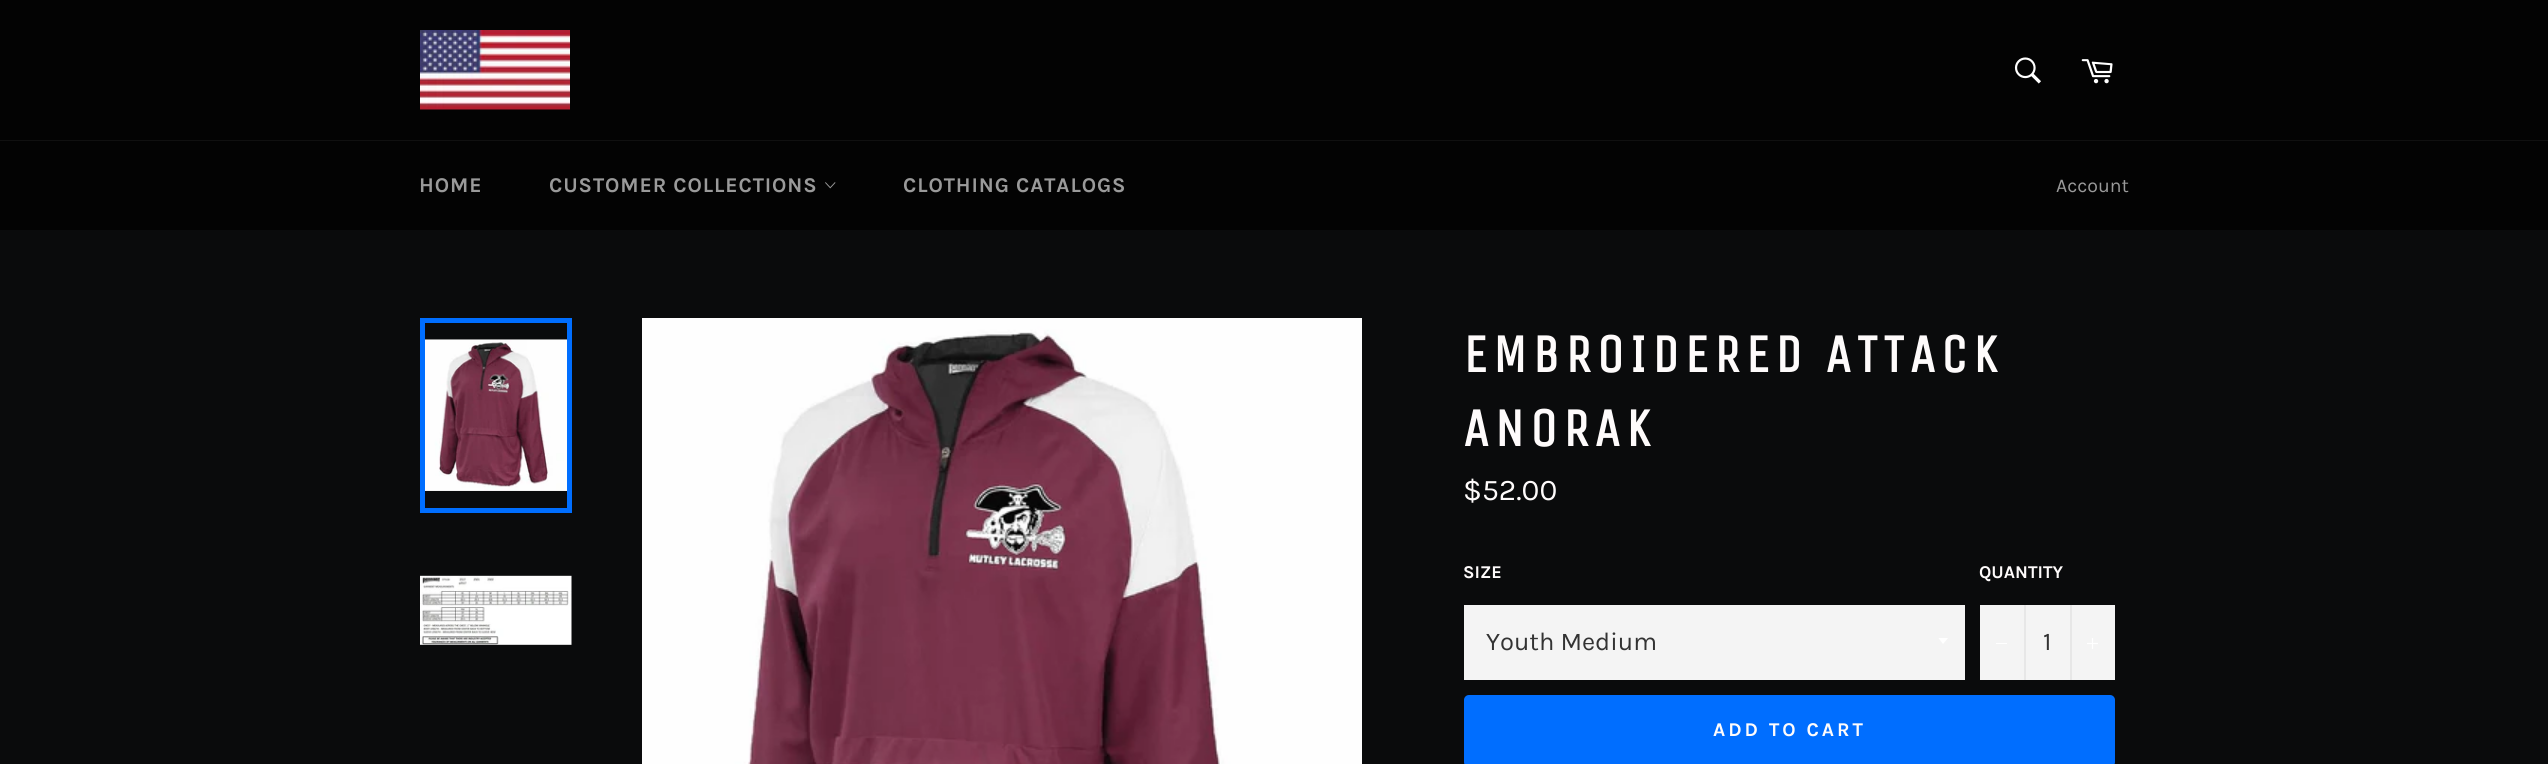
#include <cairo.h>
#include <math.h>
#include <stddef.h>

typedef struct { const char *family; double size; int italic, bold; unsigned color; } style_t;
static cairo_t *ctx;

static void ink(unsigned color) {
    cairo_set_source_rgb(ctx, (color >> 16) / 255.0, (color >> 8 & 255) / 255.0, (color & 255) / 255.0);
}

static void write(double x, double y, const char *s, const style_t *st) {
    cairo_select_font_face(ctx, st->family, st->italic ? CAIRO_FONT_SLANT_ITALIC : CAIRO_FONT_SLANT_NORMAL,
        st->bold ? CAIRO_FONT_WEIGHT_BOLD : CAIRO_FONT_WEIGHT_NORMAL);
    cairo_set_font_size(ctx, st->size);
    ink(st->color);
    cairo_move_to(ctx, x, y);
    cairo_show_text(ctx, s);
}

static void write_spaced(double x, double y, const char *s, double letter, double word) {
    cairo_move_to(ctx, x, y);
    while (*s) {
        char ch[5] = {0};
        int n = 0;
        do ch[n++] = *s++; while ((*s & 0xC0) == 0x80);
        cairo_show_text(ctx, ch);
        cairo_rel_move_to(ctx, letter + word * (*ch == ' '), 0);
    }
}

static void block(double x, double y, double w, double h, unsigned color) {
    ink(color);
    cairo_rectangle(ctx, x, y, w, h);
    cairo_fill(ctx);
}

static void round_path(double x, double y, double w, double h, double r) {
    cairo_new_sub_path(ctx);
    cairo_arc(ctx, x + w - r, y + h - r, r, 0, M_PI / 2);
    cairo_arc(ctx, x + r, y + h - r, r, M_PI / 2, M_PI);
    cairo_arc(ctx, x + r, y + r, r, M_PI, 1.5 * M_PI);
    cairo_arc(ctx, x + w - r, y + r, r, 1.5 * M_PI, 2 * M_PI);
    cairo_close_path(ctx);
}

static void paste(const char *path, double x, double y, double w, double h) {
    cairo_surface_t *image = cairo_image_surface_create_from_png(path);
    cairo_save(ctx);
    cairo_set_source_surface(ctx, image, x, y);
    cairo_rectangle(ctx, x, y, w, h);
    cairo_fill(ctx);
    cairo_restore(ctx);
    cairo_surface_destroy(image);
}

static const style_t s1 = {"Karla", 19.5, 0, 0, 0x9a9a9a};
static const style_t s2 = {"Karla", 30, 0, 0, 0xfefbfb};
static const style_t s3 = {"Karla", 18, 0, 1, 0xfefbfb};
static const style_t s4 = {"Karla", 25.5, 0, 0, 0x333333};

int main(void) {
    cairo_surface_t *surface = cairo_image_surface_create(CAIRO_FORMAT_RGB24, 2548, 764);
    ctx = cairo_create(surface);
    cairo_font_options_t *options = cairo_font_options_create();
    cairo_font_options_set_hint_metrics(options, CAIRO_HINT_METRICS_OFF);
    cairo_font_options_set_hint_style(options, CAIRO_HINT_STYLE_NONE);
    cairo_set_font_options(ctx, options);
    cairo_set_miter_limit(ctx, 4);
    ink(0x030303);
    cairo_paint(ctx);
    paste("pic1.png", 420, 30, 150, 80);
    paste("pic2.png", 2014, 57, 27, 27);
    paste("pic3.png", 2081, 59, 32, 25);
    block(0, 140, 2548, 1, 0x101010);
    cairo_select_font_face(ctx, "Karla", CAIRO_FONT_SLANT_NORMAL, CAIRO_FONT_WEIGHT_BOLD);
    cairo_set_font_size(ctx, 21);
    ink(0x9a9a9a);
    write_spaced(419, 192, "HOME", 0.9, 0);
    write_spaced(549, 192, "CUSTOMER COLLECTIONS", 0.9, 0);
    paste("pic4.png", 825, 182, 11, 7);
    write_spaced(903, 192, "CLOTHING CATALOGS", 0.9, 0);
    write(2056, 192, "Account", &s1);
    block(0, 230, 2548, 534, 0x0a0b0c);
    paste("pic5.png", 425, 339, 142, 152);
    cairo_rectangle(ctx, 422.5, 320.5, 147, 190);
    ink(0x006eff);
    cairo_set_line_width(ctx, 5);
    cairo_stroke(ctx);
    paste("pic6.png", 420, 575, 152, 70);
    paste("pic7.png", 642, 318, 720, 446);
    cairo_select_font_face(ctx, "Unica One", CAIRO_FONT_SLANT_NORMAL, CAIRO_FONT_WEIGHT_BOLD);
    cairo_set_font_size(ctx, 54);
    ink(0xfefbfb);
    write_spaced(1463, 372, "EMBROIDERED ATTACK", 5.4, 0);
    write_spaced(1463, 446, "ANORAK", 5.4, 0);
    write(1463, 500, "$52.00", &s2);
    write(1463, 578, "SIZE", &s3);
    block(1464, 605, 501, 75, 0xf4f4f4);
    cairo_save(ctx);
    cairo_rectangle(ctx, 1938, 638, 12, 7);
    cairo_clip(ctx);
    ink(0xffffff);
    cairo_new_path(ctx);
    cairo_move_to(ctx, 1938, 637.5);
    cairo_line_to(ctx, 1943, 644);
    cairo_line_to(ctx, 1948.5, 637.5);
    cairo_close_path(ctx);
    cairo_fill(ctx);
    cairo_restore(ctx);
    write(1486, 650, "Youth Medium", &s4);
    write(1979, 578, "QUANTITY", &s3);
    block(1980, 605, 135, 75, 0xf4f4f4);
    block(2024, 605, 2, 75, 0xe7e7e7);
    block(1996, 643, 11, 1, 0xffffff);
    write(2043, 650, "1", &s4);
    block(2070, 605, 2, 75, 0xe7e7e7);
    paste("pic8.png", 2087, 638, 11, 11);
    ink(0x006eff);
    round_path(1464, 695, 651, 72, 5);
    cairo_fill(ctx);
    cairo_select_font_face(ctx, "Karla", CAIRO_FONT_SLANT_NORMAL, CAIRO_FONT_WEIGHT_BOLD);
    cairo_set_font_size(ctx, 19.5);
    ink(0xfefbfb);
    write_spaced(1713, 736, "ADD TO CART", 3, 0);
    cairo_surface_write_to_png(surface, "screenshot.png");
    cairo_font_options_destroy(options);
    cairo_destroy(ctx);
    cairo_surface_destroy(surface);
    return 0;
}
